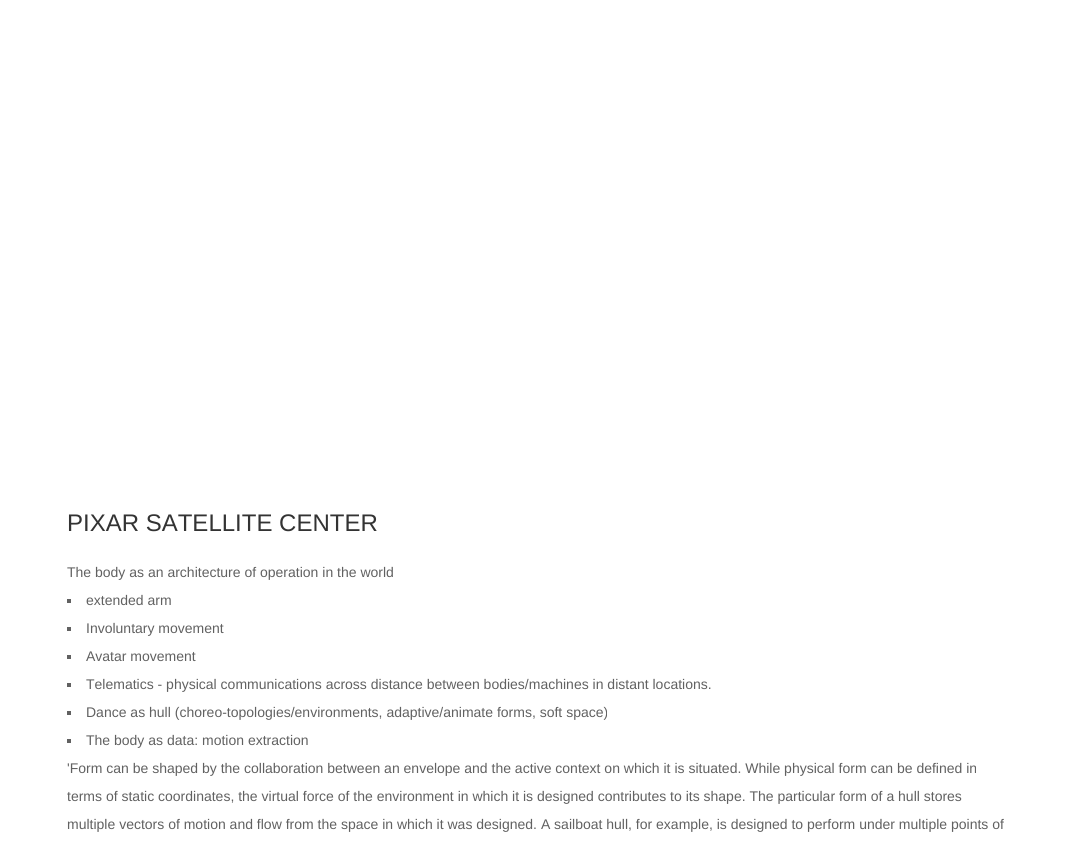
#include <cairo.h>
#include <math.h>
#include <stddef.h>

typedef struct { const char *family; double size; int italic, bold; unsigned color; } style_t;
static cairo_t *ctx;

static void ink(unsigned color) {
    cairo_set_source_rgb(ctx, (color >> 16) / 255.0, (color >> 8 & 255) / 255.0, (color & 255) / 255.0);
}

static void write(double x, double y, const char *s, const style_t *st) {
    cairo_select_font_face(ctx, st->family, st->italic ? CAIRO_FONT_SLANT_ITALIC : CAIRO_FONT_SLANT_NORMAL,
        st->bold ? CAIRO_FONT_WEIGHT_BOLD : CAIRO_FONT_WEIGHT_NORMAL);
    cairo_set_font_size(ctx, st->size);
    ink(st->color);
    cairo_move_to(ctx, x, y);
    cairo_show_text(ctx, s);
}

static void block(double x, double y, double w, double h, unsigned color) {
    ink(color);
    cairo_rectangle(ctx, x, y, w, h);
    cairo_fill(ctx);
}

static const style_t s1 = {"Liberation Sans", 24, 0, 0, 0x333333};
static const style_t s2 = {"Liberation Sans", 14, 0, 0, 0x616161};

int main(void) {
    cairo_surface_t *surface = cairo_image_surface_create(CAIRO_FORMAT_RGB24, 1074, 844);
    ctx = cairo_create(surface);
    cairo_font_options_t *options = cairo_font_options_create();
    cairo_font_options_set_hint_metrics(options, CAIRO_HINT_METRICS_OFF);
    cairo_font_options_set_hint_style(options, CAIRO_HINT_STYLE_NONE);
    cairo_set_font_options(ctx, options);
    cairo_set_miter_limit(ctx, 4);
    ink(0xffffff);
    cairo_paint(ctx);
    write(67, 531, "PIXAR SATELLITE CENTER", &s1);
    write(67, 577, "The body as an architecture of operation in the world", &s2);
    block(67, 599, 4, 4, 0x616161);
    write(86, 605, "extended arm", &s2);
    block(67, 627, 4, 4, 0x616161);
    write(86, 633, "Involuntary movement", &s2);
    block(67, 655, 4, 4, 0x616161);
    write(86, 661, "Avatar movement", &s2);
    block(67, 683, 4, 4, 0x616161);
    write(86, 689, "Telematics - physical communications across distance between bodies/machines in distant locations.", &s2);
    block(67, 711, 4, 4, 0x616161);
    write(86, 717, "Dance as hull (choreo-topologies/environments, adaptive/animate forms, soft space)", &s2);
    block(67, 739, 4, 4, 0x616161);
    write(86, 745, "The body as data: motion extraction", &s2);
    write(67, 773, "'Form can be shaped by the collaboration between an envelope and the active context on which it is situated. While physical form can be defined in", &s2);
    write(67, 801, "terms of static coordinates, the virtual force of the environment in which it is designed contributes to its shape. The particular form of a hull stores", &s2);
    write(67, 829, "multiple vectors of motion and flow from the space in which it was designed. A sailboat hull, for example, is designed to perform under multiple points of", &s2);
    cairo_surface_write_to_png(surface, "screenshot.png");
    cairo_font_options_destroy(options);
    cairo_destroy(ctx);
    cairo_surface_destroy(surface);
    return 0;
}
